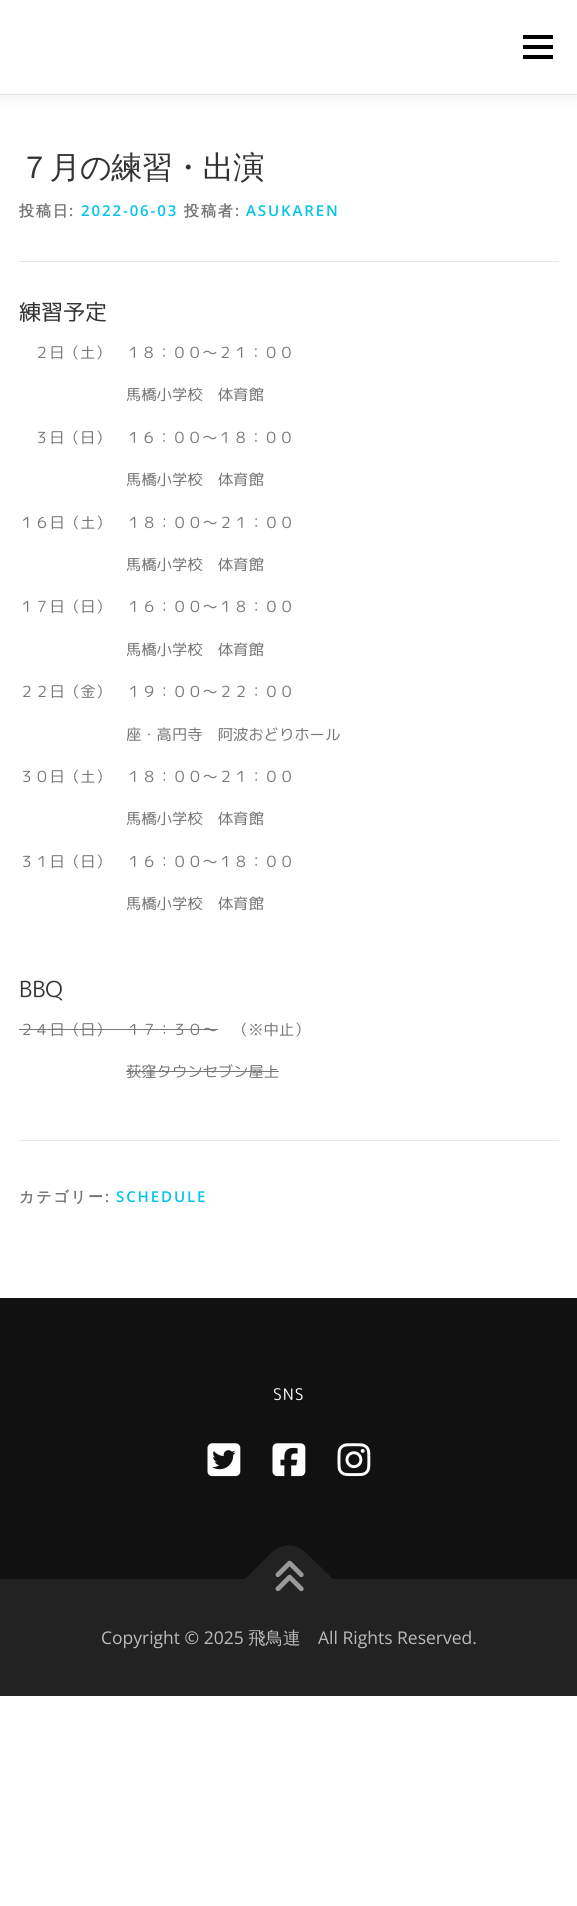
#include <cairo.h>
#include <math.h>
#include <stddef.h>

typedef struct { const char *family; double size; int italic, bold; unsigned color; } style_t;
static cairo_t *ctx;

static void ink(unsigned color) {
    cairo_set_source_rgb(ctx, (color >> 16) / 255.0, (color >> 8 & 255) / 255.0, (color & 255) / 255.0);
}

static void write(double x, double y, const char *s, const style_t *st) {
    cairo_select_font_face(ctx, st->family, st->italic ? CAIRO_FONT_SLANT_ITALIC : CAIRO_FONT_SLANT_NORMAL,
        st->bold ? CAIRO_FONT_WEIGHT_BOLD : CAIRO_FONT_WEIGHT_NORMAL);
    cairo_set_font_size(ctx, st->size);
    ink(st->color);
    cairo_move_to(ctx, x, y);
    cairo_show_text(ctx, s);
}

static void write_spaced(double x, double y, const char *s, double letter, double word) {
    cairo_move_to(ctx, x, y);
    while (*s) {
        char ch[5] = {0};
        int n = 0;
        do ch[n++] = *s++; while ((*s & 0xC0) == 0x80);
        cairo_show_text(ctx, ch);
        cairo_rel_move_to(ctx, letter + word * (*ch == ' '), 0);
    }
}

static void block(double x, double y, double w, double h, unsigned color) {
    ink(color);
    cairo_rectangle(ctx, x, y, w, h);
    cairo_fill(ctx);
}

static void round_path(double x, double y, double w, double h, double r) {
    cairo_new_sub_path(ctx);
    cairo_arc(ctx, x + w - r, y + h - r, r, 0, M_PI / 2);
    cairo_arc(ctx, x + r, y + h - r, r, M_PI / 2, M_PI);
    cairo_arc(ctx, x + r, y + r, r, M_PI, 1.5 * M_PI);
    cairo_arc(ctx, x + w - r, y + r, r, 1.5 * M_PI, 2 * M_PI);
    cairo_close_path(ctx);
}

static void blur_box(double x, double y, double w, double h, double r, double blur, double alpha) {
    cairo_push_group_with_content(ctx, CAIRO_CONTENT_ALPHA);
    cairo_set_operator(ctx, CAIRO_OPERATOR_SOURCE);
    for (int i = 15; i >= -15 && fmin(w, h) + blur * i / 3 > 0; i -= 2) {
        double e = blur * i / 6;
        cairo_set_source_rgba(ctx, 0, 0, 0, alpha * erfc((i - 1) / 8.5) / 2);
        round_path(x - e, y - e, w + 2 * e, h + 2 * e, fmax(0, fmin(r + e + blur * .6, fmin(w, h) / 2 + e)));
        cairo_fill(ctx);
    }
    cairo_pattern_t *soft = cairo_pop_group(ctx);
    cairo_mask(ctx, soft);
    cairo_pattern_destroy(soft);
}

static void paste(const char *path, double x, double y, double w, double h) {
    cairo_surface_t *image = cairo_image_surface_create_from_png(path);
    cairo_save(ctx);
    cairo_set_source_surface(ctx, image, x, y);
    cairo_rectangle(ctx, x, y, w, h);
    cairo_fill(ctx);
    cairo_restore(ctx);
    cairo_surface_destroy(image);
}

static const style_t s1 = {"M PLUS 1p", 22, 0, 0, 0x333333};
static const style_t s2 = {"Rounded Mplus 1c", 15.3, 0, 0, 0x777777};
static const style_t s3 = {"Open Sans", 17.5, 0, 0, 0xbbbbbb};
static const style_t s4 = {"WenQuanYi Zen Hei Medium", 17.5, 0, 0, 0xbbbbbb};

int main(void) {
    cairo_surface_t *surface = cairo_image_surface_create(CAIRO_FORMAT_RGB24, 577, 1906);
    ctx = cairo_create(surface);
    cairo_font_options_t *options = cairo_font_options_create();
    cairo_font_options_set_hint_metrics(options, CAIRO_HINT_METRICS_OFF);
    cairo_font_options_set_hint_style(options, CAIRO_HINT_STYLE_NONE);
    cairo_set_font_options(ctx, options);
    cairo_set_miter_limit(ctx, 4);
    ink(0xffffff);
    cairo_paint(ctx);
    block(0, 94, 577, 1, 0xe9e9e9);
    ink(0x323232);
    blur_box(0, 6, 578, 94, 0, 6, 0.06);
    block(0, 1, 577, 93, 0xffffff);
    block(523, 45, 30, 4, 0x000000);
    block(523, 35, 30, 4, 0x000000);
    block(523, 55, 30, 4, 0x000000);
    cairo_select_font_face(ctx, "WenQuanYi Zen Hei Medium", CAIRO_FONT_SLANT_NORMAL, CAIRO_FONT_WEIGHT_NORMAL);
    cairo_set_font_size(ctx, 31.25);
    ink(0x333333);
    write_spaced(19, 178, "７月の練習・出演", -0.75, 0);
    block(19, 261, 540, 1, 0xe9e9e9);
    cairo_select_font_face(ctx, "WenQuanYi Zen Hei", CAIRO_FONT_SLANT_NORMAL, CAIRO_FONT_WEIGHT_BOLD);
    cairo_set_font_size(ctx, 15);
    ink(0x777777);
    write_spaced(19, 216, "投稿日", 1.9, 0);
    cairo_select_font_face(ctx, "Open Sans SemiBold", CAIRO_FONT_SLANT_NORMAL, CAIRO_FONT_WEIGHT_NORMAL);
    write_spaced(69, 216, ":", 1.9, 0);
    ink(0x03c4eb);
    write_spaced(81, 216, "2022-06-03", 1.9, 0);
    cairo_select_font_face(ctx, "WenQuanYi Zen Hei", CAIRO_FONT_SLANT_NORMAL, CAIRO_FONT_WEIGHT_BOLD);
    ink(0x777777);
    write_spaced(184, 216, "投稿者", 1.9, 0);
    cairo_select_font_face(ctx, "Open Sans SemiBold", CAIRO_FONT_SLANT_NORMAL, CAIRO_FONT_WEIGHT_NORMAL);
    write_spaced(235, 216, ":", 1.9, 0);
    ink(0x03c4eb);
    write_spaced(246, 216, "ASUKAREN", 1.9, 0);
    write(19, 320, "練習予定", &s1);
    write(34, 358, "２日（土）　１８：００〜２１：００", &s2);
    write(126, 400, "馬橋小学校　体育館", &s2);
    write(34, 443, "３日（日）　１６：００〜１８：００", &s2);
    write(126, 485, "馬橋小学校　体育館", &s2);
    write(19, 528, "１６日（土）　１８：００〜２１：００", &s2);
    write(126, 570, "馬橋小学校　体育館", &s2);
    write(19, 612, "１７日（日）　１６：００〜１８：００", &s2);
    write(126, 655, "馬橋小学校　体育館", &s2);
    write(19, 697, "２２日（金）　１９：００〜２２：００", &s2);
    write(126, 740, "座・高円寺　阿波おどりホール", &s2);
    write(19, 782, "３０日（土）　１８：００〜２１：００", &s2);
    write(126, 824, "馬橋小学校　体育館", &s2);
    write(19, 867, "３１日（日）　１６：００〜１８：００", &s2);
    write(126, 909, "馬橋小学校　体育館", &s2);
    write(19, 997, "BBQ", &s1);
    write(19, 1035, "２４日（日）　１７：３０〜", &s2);
    block(19, 1029, 199, 1, 0x777777);
    write(233, 1035, "（※中止）", &s2);
    write(126, 1077, "荻窪タウンセブン屋上", &s2);
    block(126, 1071, 153, 1, 0x777777);
    block(19, 1140, 540, 1, 0xe9e9e9);
    cairo_select_font_face(ctx, "WenQuanYi Zen Hei", CAIRO_FONT_SLANT_NORMAL, CAIRO_FONT_WEIGHT_BOLD);
    cairo_set_font_size(ctx, 15);
    ink(0x777777);
    write_spaced(19, 1202, "カテゴリー", 1.9, 0);
    cairo_select_font_face(ctx, "Open Sans SemiBold", CAIRO_FONT_SLANT_NORMAL, CAIRO_FONT_WEIGHT_NORMAL);
    write_spaced(105, 1202, ":", 1.9, 0);
    ink(0x03c4eb);
    write_spaced(116, 1202, "SCHEDULE", 1.9, 0);
    block(0, 1298, 577, 281, 0x111111);
    cairo_select_font_face(ctx, "Rounded Mplus 1c", CAIRO_FONT_SLANT_NORMAL, CAIRO_FONT_WEIGHT_NORMAL);
    cairo_set_font_size(ctx, 16);
    ink(0xffffff);
    write_spaced(273, 1400, "SNS", 1, 0);
    paste("pic1.png", 207, 1443, 34, 34);
    paste("pic2.png", 272, 1443, 34, 34);
    paste("pic3.png", 337, 1443, 34, 34);
    block(0, 1579, 577, 117, 0x222222);
    cairo_new_path(ctx);
    cairo_move_to(ctx, 245, 1579);
    cairo_line_to(ctx, 271, 1553);
    cairo_curve_to(ctx, 281, 1543, 297, 1543, 306, 1553);
    cairo_line_to(ctx, 333, 1579);
    cairo_line_to(ctx, 289, 1623);
    cairo_close_path(ctx);
    cairo_fill(ctx);
    paste("pic4.png", 275, 1560, 29, 32);
    write(101, 1644, "Copyright © 2025", &s3);
    write(248, 1644, "飛鳥連", &s4);
    write(318, 1644, "All Rights Reserved.", &s3);
    cairo_surface_write_to_png(surface, "screenshot.png");
    cairo_font_options_destroy(options);
    cairo_destroy(ctx);
    cairo_surface_destroy(surface);
    return 0;
}
